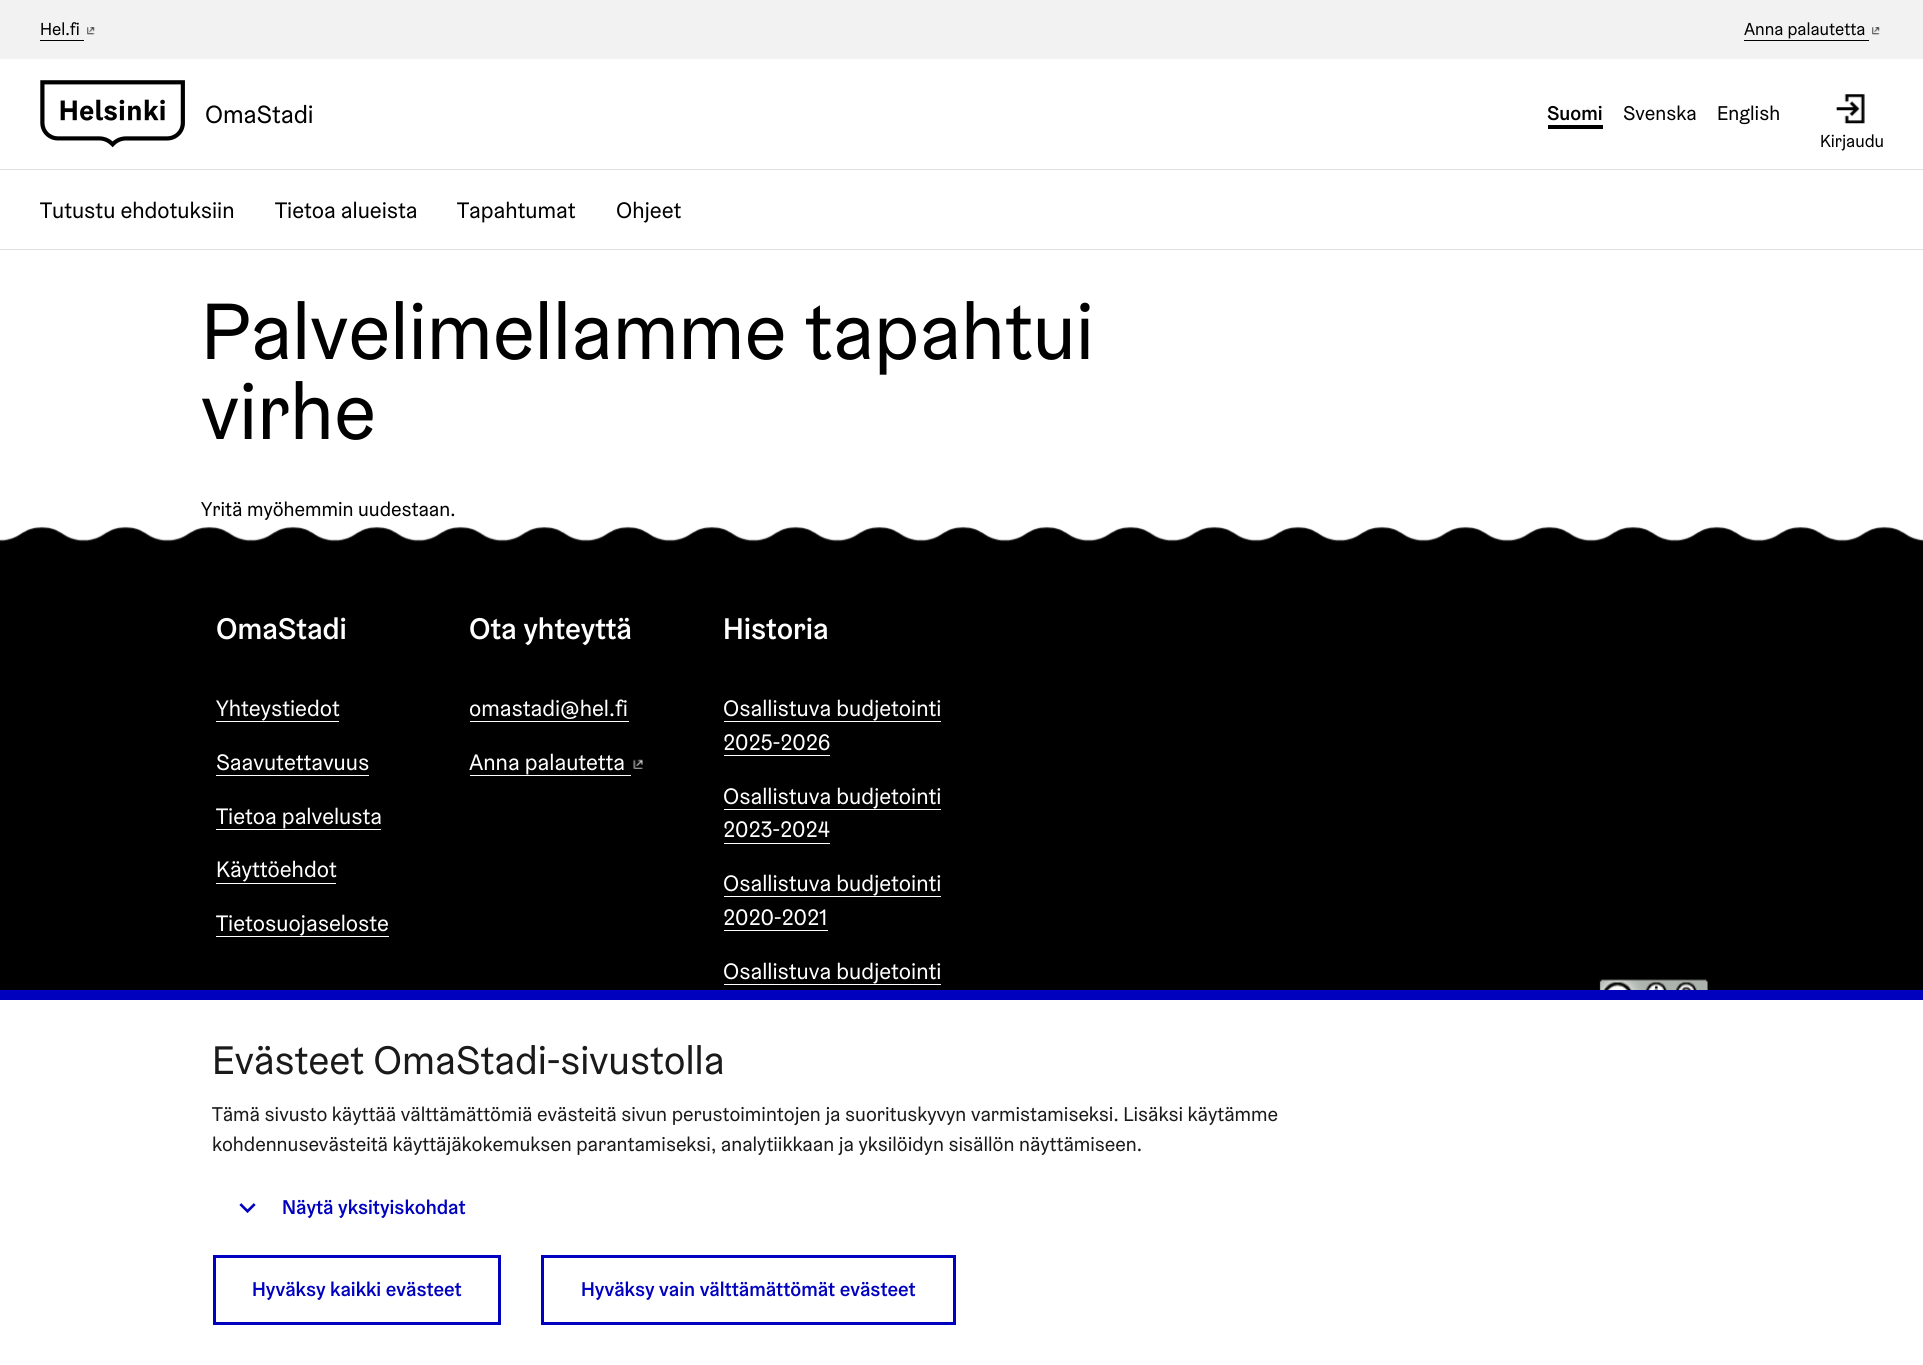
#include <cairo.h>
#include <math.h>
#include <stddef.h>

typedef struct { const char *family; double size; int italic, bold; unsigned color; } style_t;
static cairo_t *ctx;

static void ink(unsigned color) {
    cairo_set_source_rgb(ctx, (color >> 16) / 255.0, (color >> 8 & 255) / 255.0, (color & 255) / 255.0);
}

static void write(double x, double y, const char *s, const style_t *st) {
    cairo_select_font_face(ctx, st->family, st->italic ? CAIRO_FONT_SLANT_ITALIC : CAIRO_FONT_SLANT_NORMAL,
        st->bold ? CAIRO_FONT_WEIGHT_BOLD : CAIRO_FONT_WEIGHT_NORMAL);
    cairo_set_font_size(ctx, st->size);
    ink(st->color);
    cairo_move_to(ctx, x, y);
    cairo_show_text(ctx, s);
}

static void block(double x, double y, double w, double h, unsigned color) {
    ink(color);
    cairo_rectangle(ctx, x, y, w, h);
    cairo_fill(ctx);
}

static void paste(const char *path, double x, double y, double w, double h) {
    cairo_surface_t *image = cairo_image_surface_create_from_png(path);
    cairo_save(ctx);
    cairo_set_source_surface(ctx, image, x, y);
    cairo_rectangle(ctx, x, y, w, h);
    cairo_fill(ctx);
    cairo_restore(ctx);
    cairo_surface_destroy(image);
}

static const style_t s1 = {"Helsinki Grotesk", 17.5, 0, 0, 0x000000};
static const style_t s2 = {"Helsinki Grotesk", 25, 0, 0, 0x000000};
static const style_t s3 = {"Helsinki Grotesk Medium", 20, 0, 0, 0x000000};
static const style_t s4 = {"Helsinki Grotesk", 20, 0, 0, 0x000000};
static const style_t s5 = {"Helsinki Grotesk", 22.5, 0, 0, 0x000000};
static const style_t s6 = {"Helsinki Grotesk", 80, 0, 0, 0x000000};
static const style_t s7 = {"Helsinki Grotesk Medium", 30, 0, 0, 0xffffff};
static const style_t s8 = {"Helsinki Grotesk", 22.5, 0, 0, 0xffffff};
static const style_t s9 = {"Helsinki Grotesk", 40, 0, 0, 0x1a1a1a};
static const style_t s10 = {"Helsinki Grotesk", 20, 0, 0, 0x1a1a1a};
static const style_t s11 = {"Helsinki Grotesk Medium", 20, 0, 0, 0x0000bf};

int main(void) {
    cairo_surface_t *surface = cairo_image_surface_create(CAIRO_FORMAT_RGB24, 1923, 1365);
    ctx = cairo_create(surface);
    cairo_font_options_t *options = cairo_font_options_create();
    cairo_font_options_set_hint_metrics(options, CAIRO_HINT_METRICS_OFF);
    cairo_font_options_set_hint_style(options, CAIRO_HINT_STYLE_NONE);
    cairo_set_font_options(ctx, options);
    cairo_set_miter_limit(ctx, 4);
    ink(0xffffff);
    cairo_paint(ctx);
    block(0, 0, 1923, 59, 0xf2f2f2);
    write(40, 35, "Hel.fi", &s1);
    block(40, 40, 44, 1, 0x000000);
    paste("pic1.png", 87, 27, 8, 8);
    write(1744, 35, "Anna palautetta", &s1);
    block(1744, 40, 125, 1, 0x000000);
    paste("pic1.png", 1872, 27, 8, 8);
    paste("pic2.png", 40, 80, 145, 68);
    write(205, 123, "OmaStadi", &s2);
    write(1547, 120, "Suomi", &s3);
    block(1548, 125, 55, 4, 0x000000);
    write(1623, 120, "Svenska", &s4);
    write(1717, 120, "English", &s4);
    paste("pic3.png", 1836, 94, 29, 30);
    write(1820, 147, "Kirjaudu", &s1);
    block(0, 169, 1923, 1, 0xdedfe1);
    block(0, 249, 1923, 1, 0xdedfe1);
    write(40, 218, "Tutustu ehdotuksiin", &s5);
    write(275, 218, "Tietoa alueista", &s5);
    write(457, 218, "Tapahtumat", &s5);
    write(616, 218, "Ohjeet", &s5);
    write(201, 359, "Palvelimellamme tapahtui", &s6);
    write(201, 439, "virhe", &s6);
    write(201, 516, "Yritä myöhemmin uudestaan.", &s4);
    paste("pic4.png", 0, 526, 1923, 37);
    block(0, 563, 1923, 427, 0x000000);
    write(216, 639, "OmaStadi", &s7);
    write(216, 716, "Yhteystiedot", &s8);
    block(216, 721, 123, 1, 0xffffff);
    write(216, 770, "Saavutettavuus", &s8);
    block(216, 775, 153, 1, 0xffffff);
    write(216, 824, "Tietoa palvelusta", &s8);
    block(216, 829, 165, 1, 0xffffff);
    write(216, 877, "Käyttöehdot", &s8);
    block(216, 883, 120, 1, 0xffffff);
    write(216, 931, "Tietosuojaseloste", &s8);
    block(216, 936, 173, 1, 0xffffff);
    write(469, 639, "Ota yhteyttä", &s7);
    write(469, 716, "omastadi@hel.fi", &s8);
    block(470, 721, 159, 1, 0xffffff);
    write(469, 770, "Anna palautetta", &s8);
    block(470, 775, 161, 1, 0xffffff);
    paste("pic5.png", 633, 759, 10, 10);
    write(723, 639, "Historia", &s7);
    write(723, 716, "Osallistuva budjetointi", &s8);
    block(724, 721, 217, 1, 0xffffff);
    write(723, 750, "2025-2026", &s8);
    block(724, 755, 106, 1, 0xffffff);
    write(723, 804, "Osallistuva budjetointi", &s8);
    block(724, 809, 217, 1, 0xffffff);
    write(723, 837, "2023-2024", &s8);
    block(724, 843, 106, 1, 0xffffff);
    write(723, 891, "Osallistuva budjetointi", &s8);
    block(724, 896, 217, 1, 0xffffff);
    write(723, 925, "2020-2021", &s8);
    block(724, 930, 104, 1, 0xffffff);
    write(723, 979, "Osallistuva budjetointi", &s8);
    block(724, 984, 217, 1, 0xffffff);
    paste("pic6.png", 1599, 979, 109, 11);
    block(0, 990, 1923, 10, 0x0000bf);
    write(212, 1074, "Evästeet OmaStadi-sivustolla", &s9);
    write(212, 1121, "Tämä sivusto käyttää välttämättömiä evästeitä sivun perustoimintojen ja suorituskyvyn varmistamiseksi. Lisäksi käytämme", &s10);
    write(212, 1151, "kohdennusevästeitä käyttäjäkokemuksen parantamiseksi, analytiikkaan ja yksilöidyn sisällön näyttämiseen.", &s10);
    paste("pic7.png", 239, 1203, 17, 10);
    write(282, 1214, "Näytä yksityiskohdat", &s11);
    cairo_rectangle(ctx, 214.5, 1256.5, 285, 67);
    cairo_set_line_width(ctx, 3);
    cairo_stroke(ctx);
    write(252, 1296, "Hyväksy kaikki evästeet", &s11);
    cairo_rectangle(ctx, 542.5, 1256.5, 412, 67);
    cairo_stroke(ctx);
    write(581, 1296, "Hyväksy vain välttämättömät evästeet", &s11);
    cairo_surface_write_to_png(surface, "screenshot.png");
    cairo_font_options_destroy(options);
    cairo_destroy(ctx);
    cairo_surface_destroy(surface);
    return 0;
}
